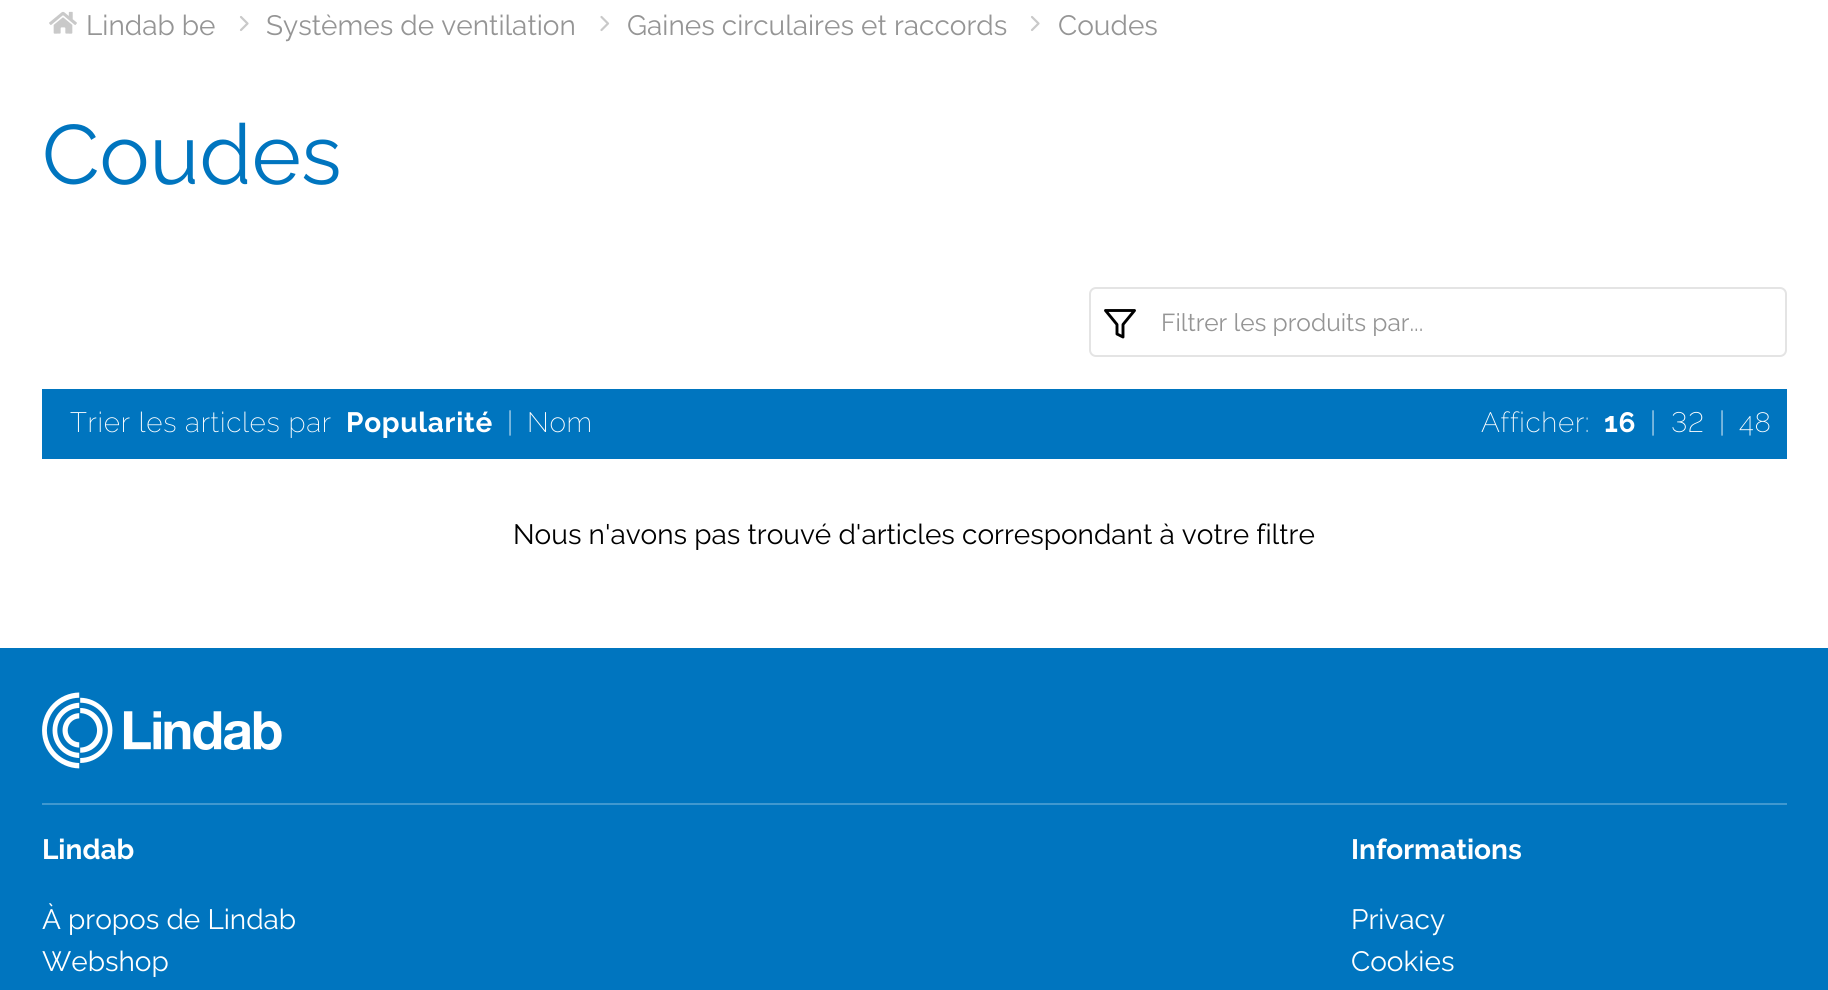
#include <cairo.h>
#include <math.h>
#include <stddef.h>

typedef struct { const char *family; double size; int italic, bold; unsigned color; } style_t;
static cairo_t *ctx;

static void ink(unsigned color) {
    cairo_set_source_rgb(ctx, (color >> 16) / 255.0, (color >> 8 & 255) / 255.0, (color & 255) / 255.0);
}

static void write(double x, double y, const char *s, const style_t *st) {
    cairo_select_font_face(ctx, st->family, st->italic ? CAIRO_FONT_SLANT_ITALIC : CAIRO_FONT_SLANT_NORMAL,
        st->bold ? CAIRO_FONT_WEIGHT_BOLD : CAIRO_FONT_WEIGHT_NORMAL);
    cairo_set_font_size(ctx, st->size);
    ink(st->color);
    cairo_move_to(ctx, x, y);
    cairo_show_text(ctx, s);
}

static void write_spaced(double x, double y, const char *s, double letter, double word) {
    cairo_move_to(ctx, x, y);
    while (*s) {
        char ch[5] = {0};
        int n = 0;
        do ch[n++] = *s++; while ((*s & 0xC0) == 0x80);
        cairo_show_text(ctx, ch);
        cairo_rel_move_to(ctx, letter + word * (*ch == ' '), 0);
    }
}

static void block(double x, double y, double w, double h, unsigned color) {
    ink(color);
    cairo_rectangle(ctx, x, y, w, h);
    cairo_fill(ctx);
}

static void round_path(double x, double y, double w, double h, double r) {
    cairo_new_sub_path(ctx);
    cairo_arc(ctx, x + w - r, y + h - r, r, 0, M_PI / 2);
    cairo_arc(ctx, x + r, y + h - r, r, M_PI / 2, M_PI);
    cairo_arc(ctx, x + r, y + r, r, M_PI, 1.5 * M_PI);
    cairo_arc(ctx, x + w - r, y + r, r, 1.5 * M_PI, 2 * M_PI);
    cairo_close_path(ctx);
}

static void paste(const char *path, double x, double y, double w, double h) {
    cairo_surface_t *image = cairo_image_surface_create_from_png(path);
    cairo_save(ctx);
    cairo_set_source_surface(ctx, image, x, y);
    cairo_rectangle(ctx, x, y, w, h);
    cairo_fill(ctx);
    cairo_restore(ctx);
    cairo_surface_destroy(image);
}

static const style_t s1 = {"Raleway Thin", 28, 0, 0, 0x959595};
static const style_t s2 = {"Raleway Thin", 84, 0, 0, 0x0075bf};
static const style_t s3 = {"Raleway Thin", 24.5, 0, 0, 0x959595};
static const style_t s4 = {"Raleway Thin", 28, 0, 0, 0x000000};
static const style_t s5 = {"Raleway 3 Thin", 28, 0, 0, 0xffffff};
static const style_t s6 = {"Raleway Thin", 28, 0, 0, 0xffffff};

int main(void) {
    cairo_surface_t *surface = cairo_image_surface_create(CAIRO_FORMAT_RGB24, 1828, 990);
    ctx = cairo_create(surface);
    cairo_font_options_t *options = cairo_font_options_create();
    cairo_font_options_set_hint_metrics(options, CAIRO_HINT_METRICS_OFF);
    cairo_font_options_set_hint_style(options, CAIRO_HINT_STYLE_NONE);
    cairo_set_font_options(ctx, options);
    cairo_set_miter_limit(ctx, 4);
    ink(0xffffff);
    cairo_paint(ctx);
    paste("pic1.png", 49, 11, 28, 23);
    write(86, 35, "Lindab be", &s1);
    cairo_new_path(ctx);
    cairo_move_to(ctx, 241, 30);
    cairo_line_to(ctx, 247.5, 23.5);
    cairo_line_to(ctx, 241, 17);
    ink(0xc9c9c9);
    cairo_set_line_width(ctx, 2.2);
    cairo_set_line_cap(ctx, CAIRO_LINE_CAP_ROUND);
    cairo_set_line_join(ctx, CAIRO_LINE_JOIN_ROUND);
    cairo_stroke(ctx);
    write(266, 35, "Systèmes de ventilation", &s1);
    cairo_new_path(ctx);
    cairo_move_to(ctx, 601.5, 30);
    cairo_line_to(ctx, 608, 23.5);
    cairo_line_to(ctx, 601.5, 17);
    ink(0xc9c9c9);
    cairo_stroke(ctx);
    write(627, 35, "Gaines circulaires et raccords", &s1);
    cairo_new_path(ctx);
    cairo_move_to(ctx, 1032, 30);
    cairo_line_to(ctx, 1038.5, 23.5);
    cairo_line_to(ctx, 1032, 17);
    ink(0xc9c9c9);
    cairo_stroke(ctx);
    write(1058, 35, "Coudes", &s1);
    write(42, 184, "Coudes", &s2);
    round_path(1090, 288, 696, 68, 6);
    ink(0xe4e4e4);
    cairo_set_line_width(ctx, 2);
    cairo_set_line_cap(ctx, CAIRO_LINE_CAP_BUTT);
    cairo_set_line_join(ctx, CAIRO_LINE_JOIN_MITER);
    cairo_stroke(ctx);
    cairo_new_path(ctx);
    cairo_move_to(ctx, 1134.5, 310.5);
    cairo_line_to(ctx, 1105.5, 310.5);
    cairo_line_to(ctx, 1117, 324.5);
    cairo_line_to(ctx, 1117, 334);
    cairo_line_to(ctx, 1123, 337);
    cairo_line_to(ctx, 1123, 324.5);
    cairo_close_path(ctx);
    ink(0x000000);
    cairo_set_line_width(ctx, 2.9);
    cairo_set_line_cap(ctx, CAIRO_LINE_CAP_ROUND);
    cairo_set_line_join(ctx, CAIRO_LINE_JOIN_ROUND);
    cairo_stroke(ctx);
    cairo_save(ctx);
    cairo_rectangle(ctx, 1160, 308, 583, 28);
    cairo_clip(ctx);
    write(1161, 331, "Filtrer les produits par...", &s3);
    cairo_restore(ctx);
    block(42, 389, 1745, 70, 0x0075bf);
    cairo_select_font_face(ctx, "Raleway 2 Thin", CAIRO_FONT_SLANT_NORMAL, CAIRO_FONT_WEIGHT_NORMAL);
    cairo_set_font_size(ctx, 28);
    ink(0xffffff);
    write_spaced(70, 432, "Trier les articles par", 0.7, 0);
    cairo_select_font_face(ctx, "Raleway 3 Thin", CAIRO_FONT_SLANT_NORMAL, CAIRO_FONT_WEIGHT_NORMAL);
    write_spaced(346, 432, "Popularité", 0.7, 0);
    cairo_select_font_face(ctx, "Raleway 2 Thin", CAIRO_FONT_SLANT_NORMAL, CAIRO_FONT_WEIGHT_NORMAL);
    write_spaced(507, 432, "|", 0.7, 0);
    write_spaced(527, 432, "Nom", 0.7, 0);
    write_spaced(1481, 432, "Afficher:", 0.7, 0);
    cairo_select_font_face(ctx, "Raleway 3 Thin", CAIRO_FONT_SLANT_NORMAL, CAIRO_FONT_WEIGHT_NORMAL);
    write_spaced(1604, 432, "16", 0.7, 0);
    cairo_select_font_face(ctx, "Raleway 2 Thin", CAIRO_FONT_SLANT_NORMAL, CAIRO_FONT_WEIGHT_NORMAL);
    write_spaced(1650, 432, "|", 0.7, 0);
    cairo_select_font_face(ctx, "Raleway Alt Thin", CAIRO_FONT_SLANT_NORMAL, CAIRO_FONT_WEIGHT_NORMAL);
    write_spaced(1671, 432, "32", 0.7, 0);
    cairo_select_font_face(ctx, "Raleway 2 Thin", CAIRO_FONT_SLANT_NORMAL, CAIRO_FONT_WEIGHT_NORMAL);
    write_spaced(1719, 432, "|", 0.7, 0);
    write_spaced(1739, 432, "48", 0.7, 0);
    write(513, 544, "Nous n'avons pas trouvé d'articles correspondant à votre filtre", &s4);
    block(0, 648, 1828, 342, 0x0075bf);
    paste("pic2.png", 42, 692, 240, 77);
    block(42, 803, 1745, 2, 0x4098cf);
    write(42, 859, "Lindab", &s5);
    write(42, 929, "À propos de Lindab", &s6);
    write(42, 971, "Webshop", &s6);
    write(1351, 859, "Informations", &s5);
    write(1351, 929, "Privacy", &s6);
    write(1351, 971, "Cookies", &s6);
    cairo_surface_write_to_png(surface, "screenshot.png");
    cairo_font_options_destroy(options);
    cairo_destroy(ctx);
    cairo_surface_destroy(surface);
    return 0;
}
